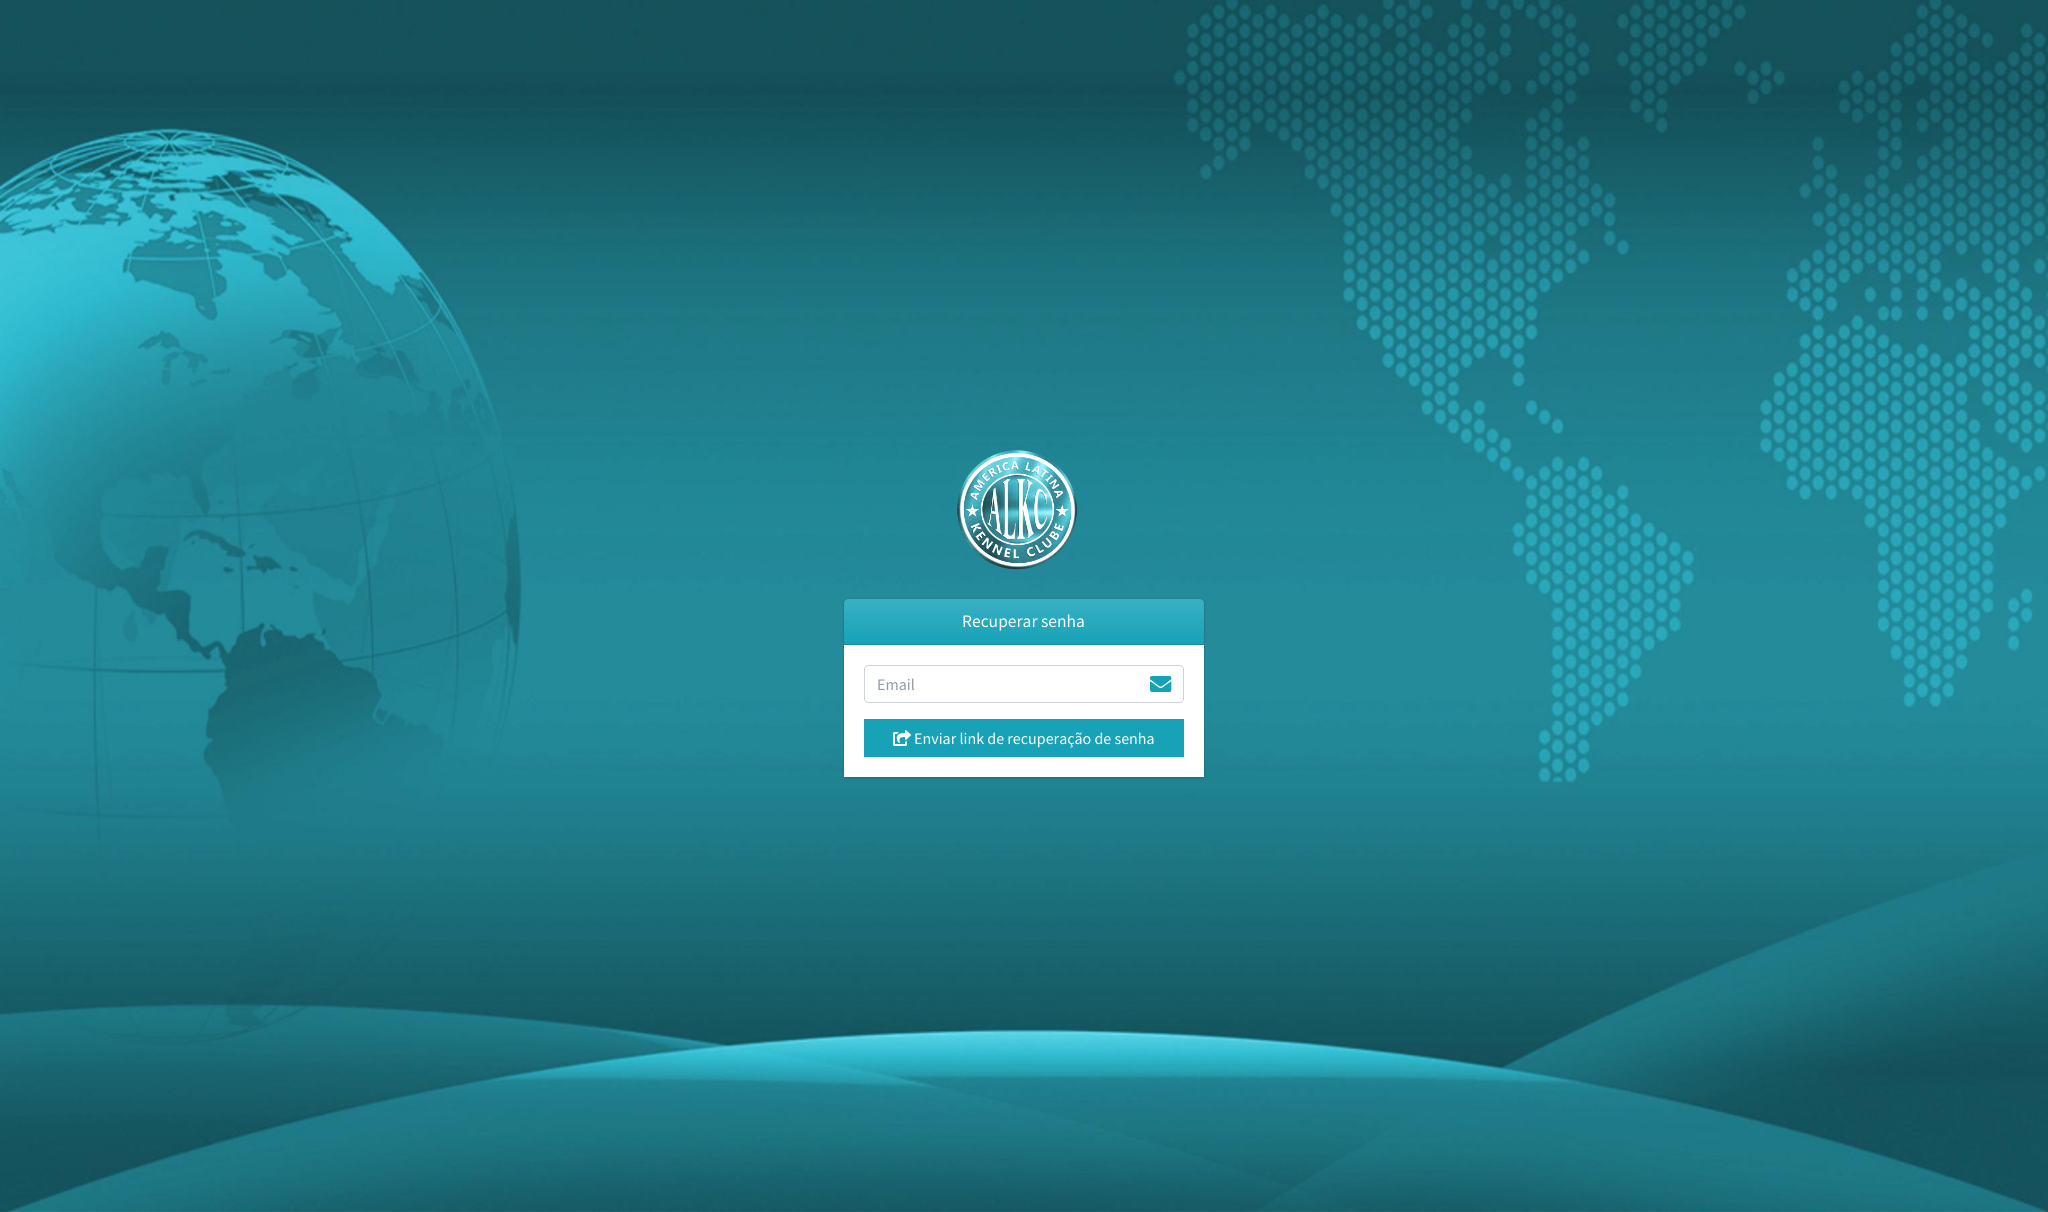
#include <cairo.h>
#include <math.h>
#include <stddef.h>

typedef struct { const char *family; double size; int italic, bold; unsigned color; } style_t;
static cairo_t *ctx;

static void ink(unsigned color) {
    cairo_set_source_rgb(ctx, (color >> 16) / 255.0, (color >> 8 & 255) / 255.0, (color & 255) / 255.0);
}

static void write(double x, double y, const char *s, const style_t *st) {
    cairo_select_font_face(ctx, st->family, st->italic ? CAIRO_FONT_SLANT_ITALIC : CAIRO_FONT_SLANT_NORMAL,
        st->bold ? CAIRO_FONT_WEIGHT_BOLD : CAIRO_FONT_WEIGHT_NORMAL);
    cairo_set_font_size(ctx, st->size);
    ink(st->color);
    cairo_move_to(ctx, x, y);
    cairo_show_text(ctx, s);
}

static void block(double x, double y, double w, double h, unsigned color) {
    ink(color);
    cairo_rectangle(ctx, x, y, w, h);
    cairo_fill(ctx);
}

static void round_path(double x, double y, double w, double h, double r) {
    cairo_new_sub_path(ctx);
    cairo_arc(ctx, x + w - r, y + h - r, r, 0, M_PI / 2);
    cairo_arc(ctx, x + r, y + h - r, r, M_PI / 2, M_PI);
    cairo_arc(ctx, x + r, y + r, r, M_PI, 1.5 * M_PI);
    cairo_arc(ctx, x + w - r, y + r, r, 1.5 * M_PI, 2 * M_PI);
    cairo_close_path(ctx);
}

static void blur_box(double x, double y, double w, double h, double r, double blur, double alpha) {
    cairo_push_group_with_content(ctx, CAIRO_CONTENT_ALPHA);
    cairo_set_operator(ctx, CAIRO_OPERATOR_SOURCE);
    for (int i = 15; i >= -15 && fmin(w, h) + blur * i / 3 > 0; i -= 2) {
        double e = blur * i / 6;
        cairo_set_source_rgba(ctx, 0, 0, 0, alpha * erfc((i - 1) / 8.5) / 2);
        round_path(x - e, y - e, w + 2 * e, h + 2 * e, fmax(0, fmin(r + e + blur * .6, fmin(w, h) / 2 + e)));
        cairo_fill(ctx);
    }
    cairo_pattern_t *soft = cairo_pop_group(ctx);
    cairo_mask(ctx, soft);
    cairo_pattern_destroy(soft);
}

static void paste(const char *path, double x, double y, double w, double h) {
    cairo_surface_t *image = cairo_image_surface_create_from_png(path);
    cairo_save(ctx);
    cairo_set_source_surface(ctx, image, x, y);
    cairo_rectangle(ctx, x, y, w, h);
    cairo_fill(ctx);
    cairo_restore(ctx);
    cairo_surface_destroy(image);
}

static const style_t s1 = {"Source Sans Pro", 17.5, 0, 0, 0xffffff};
static const style_t s2 = {"Source Sans Pro", 16, 0, 0, 0x939ba2};
static const style_t s3 = {"Source Sans Pro", 16, 0, 0, 0xffffff};

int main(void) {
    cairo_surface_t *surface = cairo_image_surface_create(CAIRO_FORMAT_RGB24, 2048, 1212);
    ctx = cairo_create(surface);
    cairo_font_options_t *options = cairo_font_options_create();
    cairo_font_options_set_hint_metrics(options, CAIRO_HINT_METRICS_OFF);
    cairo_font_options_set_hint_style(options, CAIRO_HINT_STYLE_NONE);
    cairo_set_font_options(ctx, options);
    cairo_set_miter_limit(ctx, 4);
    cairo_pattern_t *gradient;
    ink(0xffffff);
    cairo_paint(ctx);
    paste("pic1.png", 0, 0, 2048, 1212);
    paste("pic2.png", 957, 450, 120, 120);
    ink(0x000000);
    blur_box(844, 600, 360, 178, 4, 1.5, 0.2);
    blur_box(844, 599, 360, 178, 4, 0.5, 0.12);
    gradient = cairo_pattern_create_linear(1024, 599, 1024, 644);
    cairo_pattern_add_color_stop_rgba(gradient, 0, 0.227, 0.69, 0.765, 1);
    cairo_pattern_add_color_stop_rgba(gradient, 1, 0.09, 0.635, 0.722, 1);
    cairo_set_source(ctx, gradient);
    cairo_pattern_destroy(gradient);
    cairo_new_path(ctx);
    cairo_move_to(ctx, 848, 599);
    cairo_line_to(ctx, 1200, 599);
    cairo_curve_to(ctx, 1202, 599, 1204, 601, 1204, 603);
    cairo_line_to(ctx, 1204, 644);
    cairo_line_to(ctx, 844, 644);
    cairo_line_to(ctx, 844, 603);
    cairo_curve_to(ctx, 844, 601, 846, 599, 848, 599);
    cairo_close_path(ctx);
    cairo_fill(ctx);
    block(844, 644, 360, 1, 0x148ea1);
    write(962, 627, "Recuperar senha", &s1);
    block(844, 645, 360, 132, 0xffffff);
    ink(0xced4da);
    cairo_set_fill_rule(ctx, CAIRO_FILL_RULE_EVEN_ODD);
    cairo_new_path(ctx);
    cairo_move_to(ctx, 1138, 665);
    cairo_line_to(ctx, 1180, 665);
    cairo_curve_to(ctx, 1182, 665, 1184, 667, 1184, 669);
    cairo_line_to(ctx, 1184, 699);
    cairo_curve_to(ctx, 1184, 701, 1182, 703, 1180, 703);
    cairo_line_to(ctx, 1138, 703);
    cairo_close_path(ctx);
    cairo_move_to(ctx, 1138, 666);
    cairo_line_to(ctx, 1180, 666);
    cairo_curve_to(ctx, 1182, 666, 1183, 667, 1183, 669);
    cairo_line_to(ctx, 1183, 699);
    cairo_curve_to(ctx, 1183, 701, 1182, 702, 1180, 702);
    cairo_line_to(ctx, 1138, 702);
    cairo_close_path(ctx);
    cairo_fill(ctx);
    cairo_new_path(ctx);
    cairo_move_to(ctx, 868, 665);
    cairo_line_to(ctx, 1139, 665);
    cairo_line_to(ctx, 1139, 703);
    cairo_line_to(ctx, 868, 703);
    cairo_curve_to(ctx, 866, 703, 864, 701, 864, 699);
    cairo_line_to(ctx, 864, 669);
    cairo_curve_to(ctx, 864, 667, 866, 665, 868, 665);
    cairo_close_path(ctx);
    cairo_move_to(ctx, 868, 666);
    cairo_line_to(ctx, 1139, 666);
    cairo_line_to(ctx, 1139, 702);
    cairo_line_to(ctx, 868, 702);
    cairo_curve_to(ctx, 866, 702, 865, 701, 865, 699);
    cairo_line_to(ctx, 865, 669);
    cairo_curve_to(ctx, 865, 667, 866, 666, 868, 666);
    cairo_close_path(ctx);
    cairo_fill(ctx);
    write(877, 690, "Email", &s2);
    paste("pic3.png", 1150, 676, 22, 16);
    block(864, 719, 320, 38, 0x17a2b8);
    paste("pic4.png", 893, 730, 18, 16);
    write(914, 744, "Enviar link de recuperação de senha", &s3);
    cairo_surface_write_to_png(surface, "screenshot.png");
    cairo_font_options_destroy(options);
    cairo_destroy(ctx);
    cairo_surface_destroy(surface);
    return 0;
}
